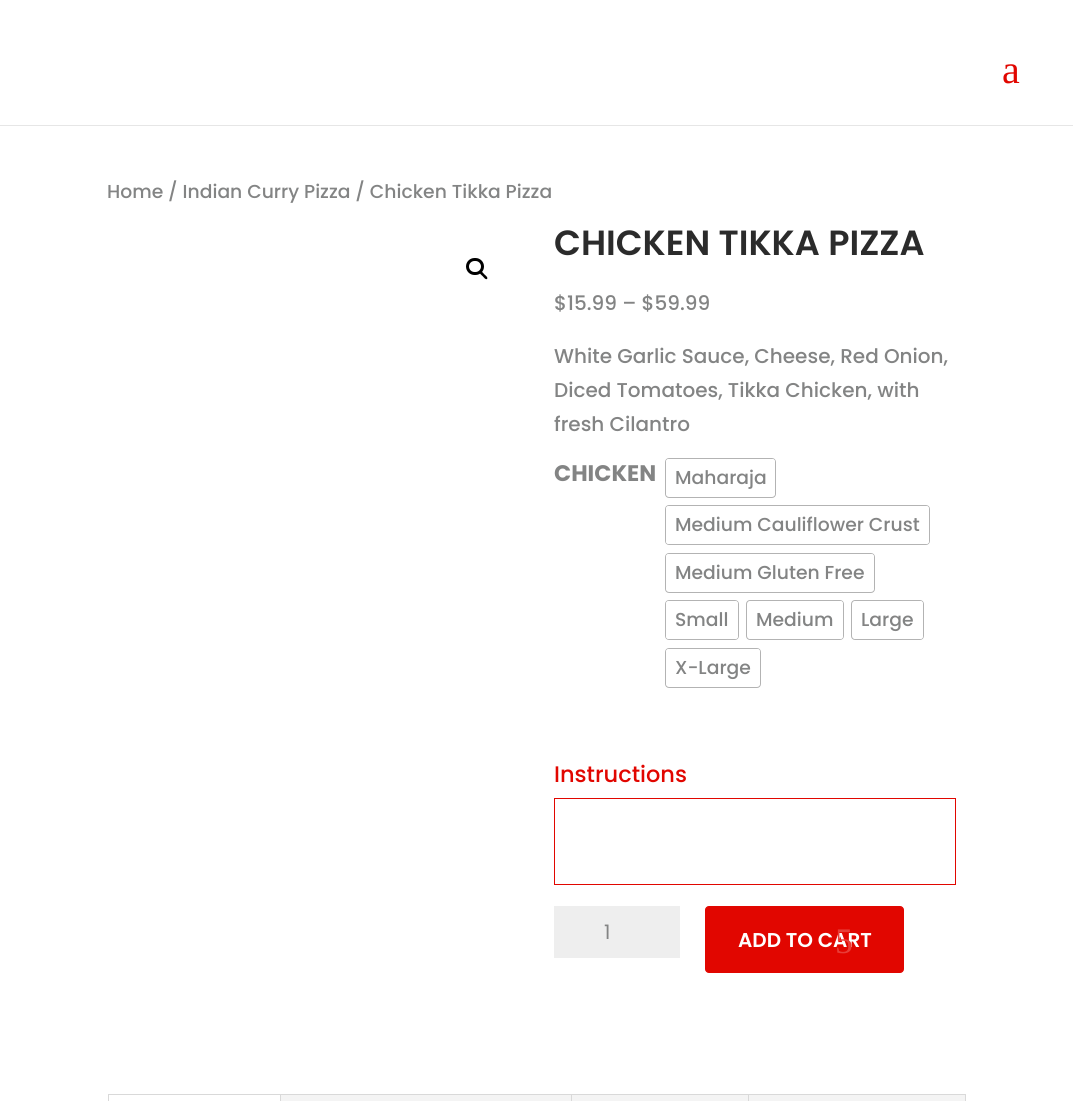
#include <cairo.h>
#include <math.h>
#include <stddef.h>

typedef struct { const char *family; double size; int italic, bold; unsigned color; } style_t;
static cairo_t *ctx;

static void ink(unsigned color) {
    cairo_set_source_rgb(ctx, (color >> 16) / 255.0, (color >> 8 & 255) / 255.0, (color & 255) / 255.0);
}

static void write(double x, double y, const char *s, const style_t *st) {
    cairo_select_font_face(ctx, st->family, st->italic ? CAIRO_FONT_SLANT_ITALIC : CAIRO_FONT_SLANT_NORMAL,
        st->bold ? CAIRO_FONT_WEIGHT_BOLD : CAIRO_FONT_WEIGHT_NORMAL);
    cairo_set_font_size(ctx, st->size);
    ink(st->color);
    cairo_move_to(ctx, x, y);
    cairo_show_text(ctx, s);
}

static void block(double x, double y, double w, double h, unsigned color) {
    ink(color);
    cairo_rectangle(ctx, x, y, w, h);
    cairo_fill(ctx);
}

static void round_path(double x, double y, double w, double h, double r) {
    cairo_new_sub_path(ctx);
    cairo_arc(ctx, x + w - r, y + h - r, r, 0, M_PI / 2);
    cairo_arc(ctx, x + r, y + h - r, r, M_PI / 2, M_PI);
    cairo_arc(ctx, x + r, y + r, r, M_PI, 1.5 * M_PI);
    cairo_arc(ctx, x + w - r, y + r, r, 1.5 * M_PI, 2 * M_PI);
    cairo_close_path(ctx);
}

static const style_t s1 = {"Liberation Serif", 40, 0, 0, 0xe10600};
static const style_t s2 = {"Poppins Medium", 18.75, 0, 0, 0x838484};
static const style_t s3 = {"Poppins SemiBold", 35, 0, 0, 0x2b2b2b};
static const style_t s4 = {"Poppins Medium", 20, 0, 0, 0x838484};
static const style_t s5 = {"Poppins", 22.5, 0, 1, 0x838484};
static const style_t s6 = {"Poppins Medium", 22.5, 0, 0, 0xe10600};
static const style_t s7 = {"Poppins", 20, 0, 0, 0x838484};
static const style_t s8 = {"Poppins SemiBold", 20, 0, 0, 0xffffff};
static const style_t s9 = {"Liberation Serif", 36, 0, 0, 0xe83d38};

int main(void) {
    cairo_surface_t *surface = cairo_image_surface_create(CAIRO_FORMAT_RGB24, 1073, 1101);
    ctx = cairo_create(surface);
    cairo_font_options_t *options = cairo_font_options_create();
    cairo_font_options_set_hint_metrics(options, CAIRO_HINT_METRICS_OFF);
    cairo_font_options_set_hint_style(options, CAIRO_HINT_STYLE_NONE);
    cairo_set_font_options(ctx, options);
    cairo_set_miter_limit(ctx, 4);
    ink(0xffffff);
    cairo_paint(ctx);
    ink(0xe6e6e6);
    cairo_new_path(ctx);
    cairo_move_to(ctx, 0, 125);
    cairo_line_to(ctx, 0, 126);
    cairo_line_to(ctx, 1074, 126);
    cairo_line_to(ctx, 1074, 1);
    cairo_line_to(ctx, 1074, 125);
    cairo_close_path(ctx);
    cairo_fill(ctx);
    write(1002, 83, "a", &s1);
    write(107, 198, "Home / Indian Curry Pizza / Chicken Tikka Pizza", &s2);
    round_path(467.5, 259.5, 15, 14, 7);
    ink(0x000000);
    cairo_set_line_width(ctx, 3);
    cairo_stroke(ctx);
    cairo_new_path(ctx);
    cairo_move_to(ctx, 480, 271.5);
    cairo_curve_to(ctx, 481.5, 270.5, 483.5, 273.5, 484.5, 274.5);
    cairo_curve_to(ctx, 485, 275, 488.5, 277.5, 487, 279);
    cairo_curve_to(ctx, 485.5, 280, 483.5, 277, 482.5, 276);
    cairo_curve_to(ctx, 482, 275.5, 478.5, 273, 480, 271.5);
    cairo_close_path(ctx);
    cairo_fill(ctx);
    write(554, 255, "CHICKEN TIKKA PIZZA", &s3);
    write(554, 310, "$15.99 – $59.99", &s4);
    write(554, 363, "White Garlic Sauce, Cheese, Red Onion,", &s4);
    write(554, 397, "Diced Tomatoes, Tikka Chicken, with", &s4);
    write(554, 431, "fresh Cilantro", &s4);
    write(554, 481, "CHICKEN", &s5);
    round_path(665.5, 458.5, 110, 39, 3.5);
    ink(0xb3b3b3);
    cairo_set_line_width(ctx, 1);
    cairo_stroke(ctx);
    ink(0xffffff);
    round_path(666, 459, 109, 37, 2.5);
    cairo_fill(ctx);
    write(675, 484, "Maharaja", &s2);
    round_path(665.5, 505.5, 264, 39, 3.5);
    ink(0xb3b3b3);
    cairo_stroke(ctx);
    ink(0xffffff);
    round_path(666, 506, 263, 38, 2.5);
    cairo_fill(ctx);
    write(675, 531, "Medium Cauliflower Crust", &s2);
    round_path(665.5, 553.5, 209, 39, 3.5);
    ink(0xb3b3b3);
    cairo_stroke(ctx);
    ink(0xffffff);
    round_path(666, 554, 208, 37, 2.5);
    cairo_fill(ctx);
    write(675, 579, "Medium Gluten Free", &s2);
    round_path(665.5, 600.5, 73, 39, 3.5);
    ink(0xb3b3b3);
    cairo_stroke(ctx);
    ink(0xffffff);
    round_path(666, 601, 72, 38, 2.5);
    cairo_fill(ctx);
    write(675, 626, "Small", &s2);
    round_path(746.5, 600.5, 97, 39, 3.5);
    ink(0xb3b3b3);
    cairo_stroke(ctx);
    ink(0xffffff);
    round_path(748, 601, 95, 38, 2.5);
    cairo_fill(ctx);
    write(756, 626, "Medium", &s2);
    round_path(851.5, 600.5, 72, 39, 3.5);
    ink(0xb3b3b3);
    cairo_stroke(ctx);
    ink(0xffffff);
    round_path(853, 601, 70, 38, 2.5);
    cairo_fill(ctx);
    write(861, 626, "Large", &s2);
    round_path(665.5, 648.5, 95, 39, 3.5);
    ink(0xb3b3b3);
    cairo_stroke(ctx);
    ink(0xffffff);
    round_path(666, 649, 94, 37, 2.5);
    cairo_fill(ctx);
    write(675, 674, "X-Large", &s2);
    write(554, 782, "Instructions", &s6);
    cairo_rectangle(ctx, 554.5, 798.5, 401, 86);
    cairo_stroke(ctx);
    block(554, 906, 126, 52, 0xeeeeee);
    write(604, 939, "1", &s7);
    ink(0xe10600);
    round_path(705.5, 906.5, 198, 66, 3.5);
    cairo_fill_preserve(ctx);
    cairo_stroke(ctx);
    write(738, 947, "ADD TO CART", &s8);
    write(835, 953, "5", &s9);
    cairo_rectangle(ctx, 108.5, 1094.5, 857, 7);
    ink(0xd9d9d9);
    cairo_stroke(ctx);
    block(281, 1095, 684, 6, 0xf4f4f4);
    block(280, 1095, 1, 6, 0xd9d9d9);
    block(571, 1095, 1, 6, 0xd9d9d9);
    block(748, 1095, 1, 6, 0xd9d9d9);
    cairo_surface_write_to_png(surface, "screenshot.png");
    cairo_font_options_destroy(options);
    cairo_destroy(ctx);
    cairo_surface_destroy(surface);
    return 0;
}
